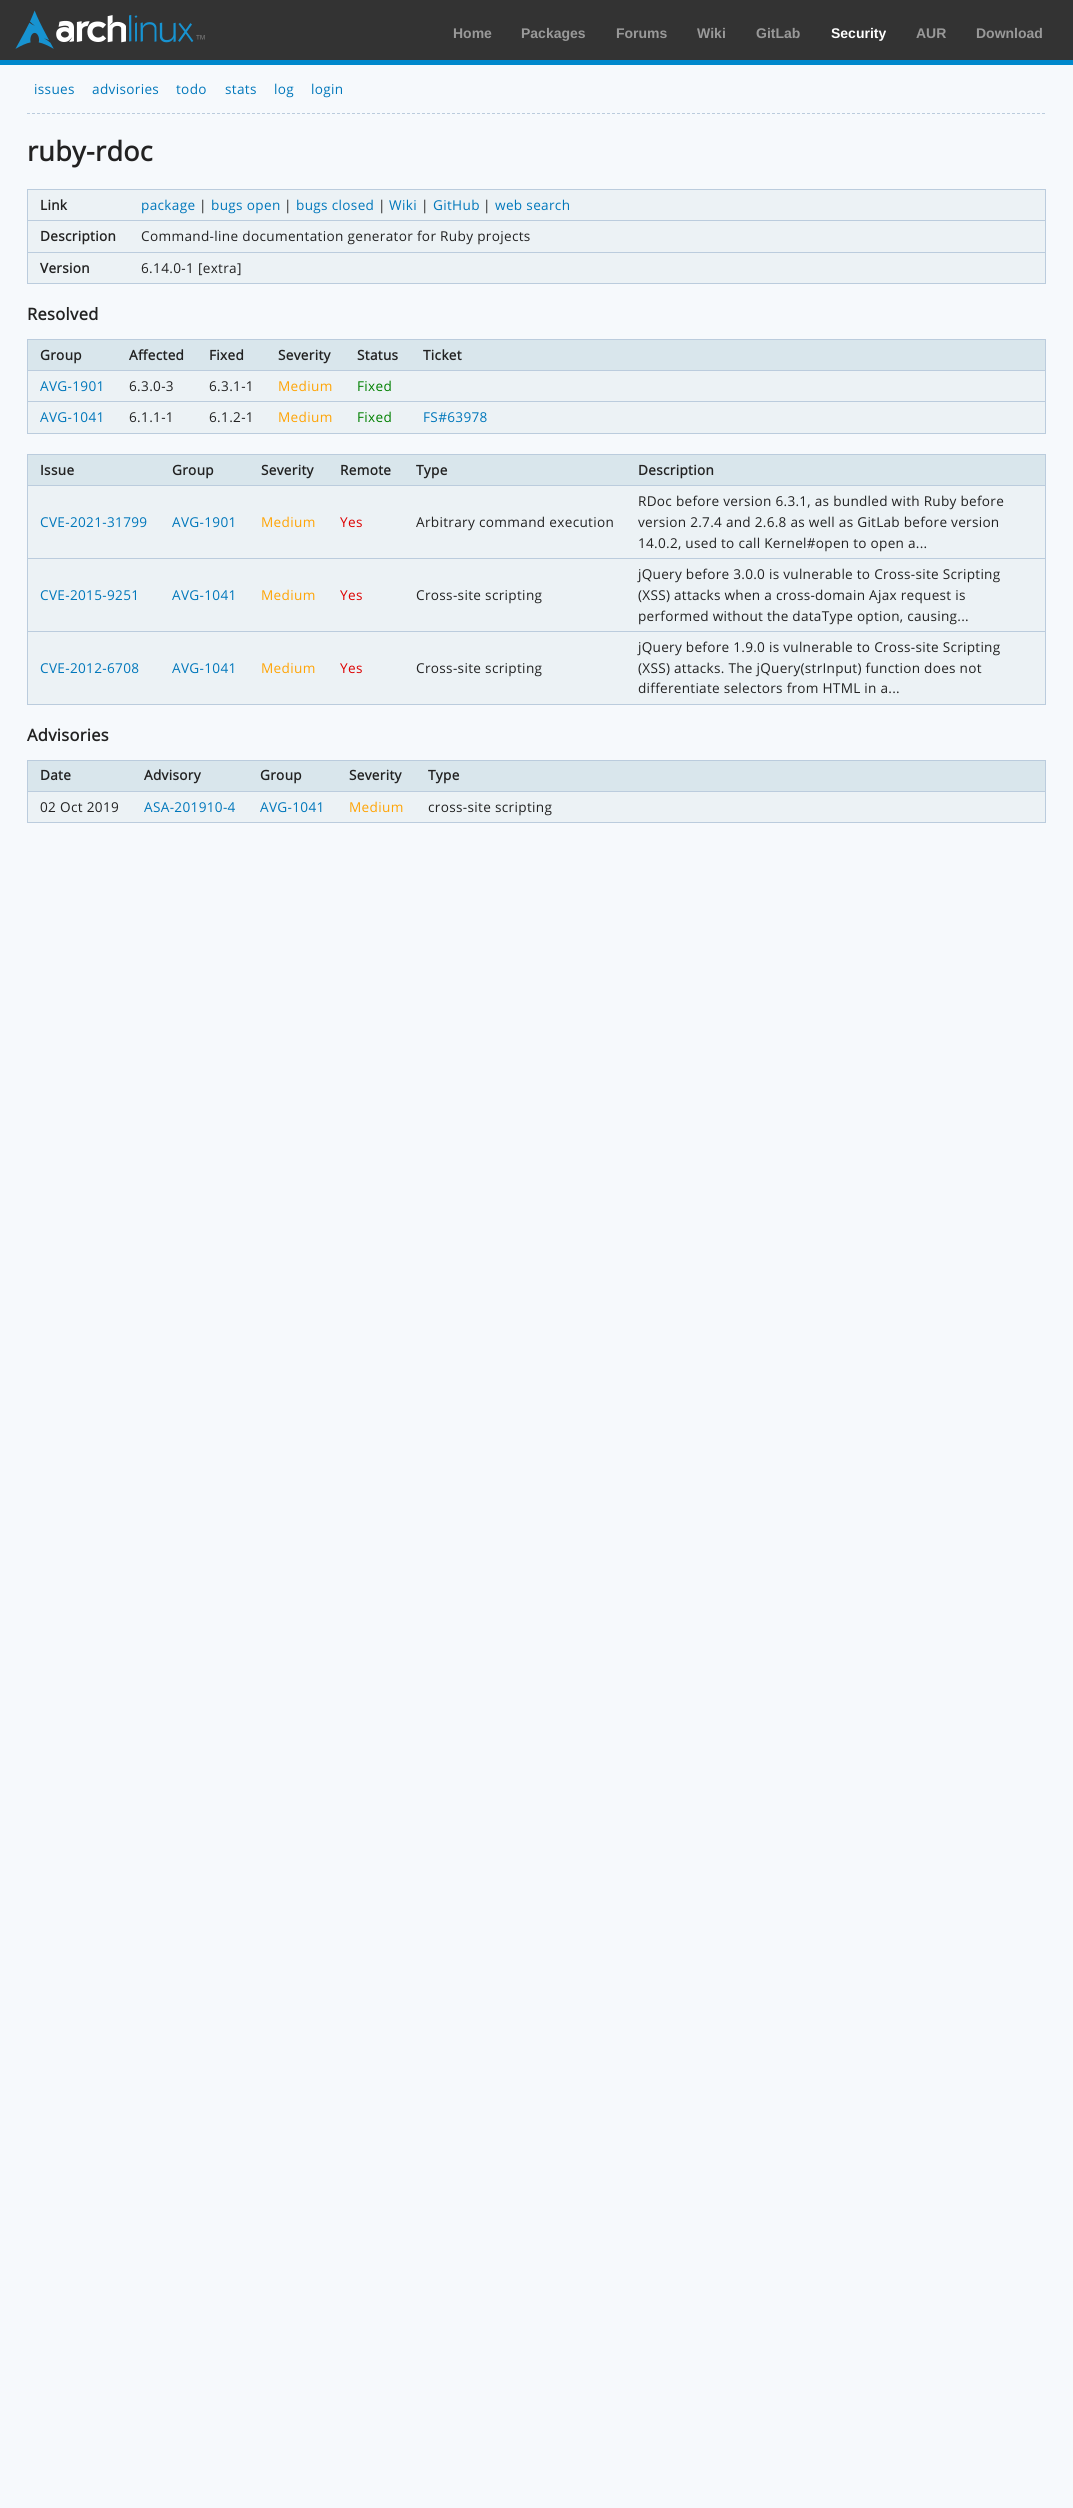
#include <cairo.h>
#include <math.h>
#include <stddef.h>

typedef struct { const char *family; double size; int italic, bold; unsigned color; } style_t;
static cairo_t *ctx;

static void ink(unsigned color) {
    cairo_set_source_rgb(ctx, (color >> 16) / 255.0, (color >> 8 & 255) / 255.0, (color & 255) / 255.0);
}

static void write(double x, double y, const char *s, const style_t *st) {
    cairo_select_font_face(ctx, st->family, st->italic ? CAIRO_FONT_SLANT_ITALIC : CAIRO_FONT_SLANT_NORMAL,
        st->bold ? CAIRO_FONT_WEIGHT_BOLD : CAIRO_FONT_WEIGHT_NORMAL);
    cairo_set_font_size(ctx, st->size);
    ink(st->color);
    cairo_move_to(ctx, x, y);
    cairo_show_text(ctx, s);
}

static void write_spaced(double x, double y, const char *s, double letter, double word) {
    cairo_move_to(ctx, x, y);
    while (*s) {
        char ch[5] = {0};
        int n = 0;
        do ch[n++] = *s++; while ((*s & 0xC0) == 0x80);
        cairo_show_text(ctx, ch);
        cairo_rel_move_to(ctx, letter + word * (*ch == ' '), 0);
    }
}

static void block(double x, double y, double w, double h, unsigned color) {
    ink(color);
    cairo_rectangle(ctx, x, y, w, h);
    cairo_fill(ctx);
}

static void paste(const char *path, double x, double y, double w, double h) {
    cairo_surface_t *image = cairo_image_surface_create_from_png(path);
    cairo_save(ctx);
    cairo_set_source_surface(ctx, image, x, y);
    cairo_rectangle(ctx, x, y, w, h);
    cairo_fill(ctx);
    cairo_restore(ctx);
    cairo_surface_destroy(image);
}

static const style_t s1 = {"Liberation Sans", 14, 0, 1, 0x999999};
static const style_t s2 = {"Liberation Sans", 14, 0, 1, 0xffffff};

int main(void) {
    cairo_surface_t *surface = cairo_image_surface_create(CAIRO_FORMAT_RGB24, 1073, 2508);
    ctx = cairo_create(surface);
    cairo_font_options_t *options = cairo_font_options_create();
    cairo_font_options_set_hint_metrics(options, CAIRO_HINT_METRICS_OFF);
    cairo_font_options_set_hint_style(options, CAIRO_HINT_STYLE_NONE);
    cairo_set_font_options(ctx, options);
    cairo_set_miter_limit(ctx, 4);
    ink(0xf6f9fc);
    cairo_paint(ctx);
    block(0, 0, 1073, 60, 0x333333);
    block(0, 60, 1073, 5, 0x0088cc);
    paste("pic1.png", 15, 10, 190, 39);
    write(453, 38, "Home", &s1);
    write(521, 38, "Packages", &s1);
    write(616, 38, "Forums", &s1);
    write(697, 38, "Wiki", &s1);
    write(756, 38, "GitLab", &s1);
    write(831, 38, "Security", &s2);
    write(916, 38, "AUR", &s1);
    write(976, 38, "Download", &s1);
    cairo_select_font_face(ctx, "Open Sans", CAIRO_FONT_SLANT_NORMAL, CAIRO_FONT_WEIGHT_NORMAL);
    cairo_set_font_size(ctx, 13.6);
    ink(0x0077bb);
    write_spaced(34, 94, "issues", 0.32, 0);
    write_spaced(92, 94, "advisories", 0.32, 0);
    write_spaced(176, 94, "todo", 0.32, 0);
    write_spaced(225, 94, "stats", 0.32, 0);
    write_spaced(274, 94, "log", 0.32, 0);
    write_spaced(311, 94, "login", 0.32, 0);
    cairo_new_path(ctx);
    cairo_move_to(ctx, 27, 113.5);
    cairo_line_to(ctx, 1046, 113.5);
    ink(0xbbccdd);
    cairo_set_line_width(ctx, 1);
    cairo_set_dash(ctx, (double[]){3, 2}, 2, 0);
    cairo_stroke(ctx);
    cairo_select_font_face(ctx, "Open Sans", CAIRO_FONT_SLANT_NORMAL, CAIRO_FONT_WEIGHT_BOLD);
    cairo_set_font_size(ctx, 27);
    ink(0x222222);
    write_spaced(27, 161, "ruby-rdoc", 0.32, 0);
    block(28, 190, 1017, 93, 0xecf2f5);
    block(27, 189, 1019, 1, 0xbbccdd);
    block(1045, 189, 1, 95, 0xbbccdd);
    block(27, 283, 1019, 1, 0xbbccdd);
    block(27, 189, 1, 95, 0xbbccdd);
    cairo_set_font_size(ctx, 13.6);
    ink(0x222222);
    write_spaced(40, 210, "Link", 0.32, 0);
    cairo_select_font_face(ctx, "Open Sans", CAIRO_FONT_SLANT_NORMAL, CAIRO_FONT_WEIGHT_NORMAL);
    ink(0x0077bb);
    write_spaced(141, 210, "package", 0.32, 0);
    ink(0x222222);
    write_spaced(199, 210, "|", 0.32, 0);
    ink(0x0077bb);
    write_spaced(211, 210, "bugs open", 0.32, 0);
    ink(0x222222);
    write_spaced(284, 210, "|", 0.32, 0);
    ink(0x0077bb);
    write_spaced(296, 210, "bugs closed", 0.32, 0);
    ink(0x222222);
    write_spaced(378, 210, "|", 0.32, 0);
    ink(0x0077bb);
    write_spaced(389, 210, "Wiki", 0.32, 0);
    ink(0x222222);
    write_spaced(421, 210, "|", 0.32, 0);
    ink(0x0077bb);
    write_spaced(433, 210, "GitHub", 0.32, 0);
    ink(0x222222);
    write_spaced(483, 210, "|", 0.32, 0);
    ink(0x0077bb);
    write_spaced(495, 210, "web search", 0.32, 0);
    cairo_select_font_face(ctx, "Open Sans", CAIRO_FONT_SLANT_NORMAL, CAIRO_FONT_WEIGHT_BOLD);
    ink(0x222222);
    write_spaced(40, 241, "Description", 0.32, 0);
    block(27, 220, 1019, 1, 0xbbccdd);
    cairo_select_font_face(ctx, "Open Sans", CAIRO_FONT_SLANT_NORMAL, CAIRO_FONT_WEIGHT_NORMAL);
    ink(0x222222);
    write_spaced(141, 241, "Command-line documentation generator for Ruby projects", 0.32, 0);
    cairo_select_font_face(ctx, "Open Sans", CAIRO_FONT_SLANT_NORMAL, CAIRO_FONT_WEIGHT_BOLD);
    write_spaced(40, 273, "Version", 0.32, 0);
    block(27, 252, 1019, 1, 0xbbccdd);
    cairo_select_font_face(ctx, "Open Sans", CAIRO_FONT_SLANT_NORMAL, CAIRO_FONT_WEIGHT_NORMAL);
    ink(0x222222);
    write_spaced(141, 273, "6.14.0-1 [extra]", 0.32, 0);
    cairo_select_font_face(ctx, "Open Sans", CAIRO_FONT_SLANT_NORMAL, CAIRO_FONT_WEIGHT_BOLD);
    cairo_set_font_size(ctx, 16.5);
    write_spaced(27, 320, "Resolved", 0.32, 0);
    block(28, 371, 1017, 62, 0xecf2f5);
    block(27, 339, 1019, 1, 0xbbccdd);
    block(1045, 339, 1, 95, 0xbbccdd);
    block(27, 433, 1019, 1, 0xbbccdd);
    block(27, 339, 1, 95, 0xbbccdd);
    block(28, 340, 1017, 30, 0xd9e6ec);
    cairo_set_font_size(ctx, 13.6);
    ink(0x222222);
    write_spaced(40, 360, "Group", 0.32, 0);
    write_spaced(129, 360, "Affected", 0.32, 0);
    write_spaced(209, 360, "Fixed", 0.32, 0);
    write_spaced(278, 360, "Severity", 0.32, 0);
    write_spaced(357, 360, "Status", 0.32, 0);
    write_spaced(423, 360, "Ticket", 0.32, 0);
    block(27, 370, 1019, 1, 0xbbccdd);
    cairo_select_font_face(ctx, "Open Sans", CAIRO_FONT_SLANT_NORMAL, CAIRO_FONT_WEIGHT_NORMAL);
    ink(0x0077bb);
    write_spaced(40, 391, "AVG-1901", 0.32, 0);
    ink(0x222222);
    write_spaced(129, 391, "6.3.0-3", 0.32, 0);
    write_spaced(209, 391, "6.3.1-1", 0.32, 0);
    ink(0xffa405);
    write_spaced(278, 391, "Medium", 0.32, 0);
    ink(0x008000);
    write_spaced(357, 391, "Fixed", 0.32, 0);
    ink(0x0077bb);
    write_spaced(40, 422, "AVG-1041", 0.32, 0);
    ink(0x222222);
    write_spaced(129, 422, "6.1.1-1", 0.32, 0);
    write_spaced(209, 422, "6.1.2-1", 0.32, 0);
    ink(0xffa405);
    write_spaced(278, 422, "Medium", 0.32, 0);
    ink(0x008000);
    write_spaced(357, 422, "Fixed", 0.32, 0);
    block(27, 401, 1019, 1, 0xbbccdd);
    ink(0x0077bb);
    write_spaced(423, 422, "FS#63978", 0.32, 0);
    block(28, 486, 1017, 218, 0xecf2f5);
    block(27, 454, 1019, 1, 0xbbccdd);
    block(1045, 454, 1, 251, 0xbbccdd);
    block(27, 704, 1019, 1, 0xbbccdd);
    block(27, 454, 1, 251, 0xbbccdd);
    block(28, 455, 1017, 30, 0xd9e6ec);
    cairo_select_font_face(ctx, "Open Sans", CAIRO_FONT_SLANT_NORMAL, CAIRO_FONT_WEIGHT_BOLD);
    ink(0x222222);
    write_spaced(40, 475, "Issue", 0.32, 0);
    write_spaced(172, 475, "Group", 0.32, 0);
    write_spaced(261, 475, "Severity", 0.32, 0);
    write_spaced(340, 475, "Remote", 0.32, 0);
    write_spaced(416, 475, "Type", 0.32, 0);
    write_spaced(638, 475, "Description", 0.32, 0);
    cairo_select_font_face(ctx, "Open Sans", CAIRO_FONT_SLANT_NORMAL, CAIRO_FONT_WEIGHT_NORMAL);
    ink(0x0077bb);
    write_spaced(40, 527, "CVE-2021-31799", 0.32, 0);
    write_spaced(172, 527, "AVG-1901", 0.32, 0);
    ink(0xffa405);
    write_spaced(261, 527, "Medium", 0.32, 0);
    ink(0xdd0000);
    write_spaced(340, 527, "Yes", 0.32, 0);
    ink(0x222222);
    write_spaced(416, 527, "Arbitrary command execution", 0.32, 0);
    block(27, 485, 1019, 1, 0xbbccdd);
    ink(0x222222);
    write_spaced(638, 506, "RDoc before version 6.3.1, as bundled with Ruby before", 0.27, 0);
    write_spaced(638, 527, "version 2.7.4 and 2.6.8 as well as GitLab before version", 0.27, 0);
    write_spaced(638, 548, "14.0.2, used to call Kernel#open to open a...", 0.27, 0);
    ink(0x0077bb);
    write_spaced(40, 600, "CVE-2015-9251", 0.32, 0);
    write_spaced(172, 600, "AVG-1041", 0.32, 0);
    ink(0xffa405);
    write_spaced(261, 600, "Medium", 0.32, 0);
    ink(0xdd0000);
    write_spaced(340, 600, "Yes", 0.32, 0);
    ink(0x222222);
    write_spaced(416, 600, "Cross-site scripting", 0.32, 0);
    block(27, 558, 1019, 1, 0xbbccdd);
    ink(0x222222);
    write_spaced(638, 579, "jQuery before 3.0.0 is vulnerable to Cross-site Scripting", 0.27, 0);
    write_spaced(638, 600, "(XSS) attacks when a cross-domain Ajax request is", 0.27, 0);
    write_spaced(638, 621, "performed without the dataType option, causing...", 0.27, 0);
    ink(0x0077bb);
    write_spaced(40, 673, "CVE-2012-6708", 0.32, 0);
    write_spaced(172, 673, "AVG-1041", 0.32, 0);
    ink(0xffa405);
    write_spaced(261, 673, "Medium", 0.32, 0);
    ink(0xdd0000);
    write_spaced(340, 673, "Yes", 0.32, 0);
    ink(0x222222);
    write_spaced(416, 673, "Cross-site scripting", 0.32, 0);
    block(27, 631, 1019, 1, 0xbbccdd);
    ink(0x222222);
    write_spaced(638, 652, "jQuery before 1.9.0 is vulnerable to Cross-site Scripting", 0.27, 0);
    write_spaced(638, 673, "(XSS) attacks. The jQuery(strInput) function does not", 0.27, 0);
    write_spaced(638, 693, "differentiate selectors from HTML in a...", 0.27, 0);
    cairo_select_font_face(ctx, "Open Sans", CAIRO_FONT_SLANT_NORMAL, CAIRO_FONT_WEIGHT_BOLD);
    cairo_set_font_size(ctx, 16.5);
    write_spaced(27, 741, "Advisories", 0.32, 0);
    block(28, 792, 1017, 30, 0xecf2f5);
    block(27, 760, 1019, 1, 0xbbccdd);
    block(1045, 760, 1, 63, 0xbbccdd);
    block(27, 822, 1019, 1, 0xbbccdd);
    block(27, 760, 1, 63, 0xbbccdd);
    block(28, 761, 1017, 30, 0xd9e6ec);
    cairo_set_font_size(ctx, 13.6);
    ink(0x222222);
    write_spaced(40, 780, "Date", 0.32, 0);
    write_spaced(144, 780, "Advisory", 0.32, 0);
    write_spaced(260, 780, "Group", 0.32, 0);
    write_spaced(349, 780, "Severity", 0.32, 0);
    write_spaced(428, 780, "Type", 0.32, 0);
    cairo_select_font_face(ctx, "Open Sans", CAIRO_FONT_SLANT_NORMAL, CAIRO_FONT_WEIGHT_NORMAL);
    write_spaced(40, 812, "02 Oct 2019", 0.32, 0);
    ink(0x0077bb);
    write_spaced(144, 812, "ASA-201910-4", 0.32, 0);
    write_spaced(260, 812, "AVG-1041", 0.32, 0);
    ink(0xffa405);
    write_spaced(349, 812, "Medium", 0.32, 0);
    block(27, 791, 1019, 1, 0xbbccdd);
    ink(0x222222);
    write_spaced(428, 812, "cross-site scripting", 0.32, 0);
    cairo_surface_write_to_png(surface, "screenshot.png");
    cairo_font_options_destroy(options);
    cairo_destroy(ctx);
    cairo_surface_destroy(surface);
    return 0;
}
